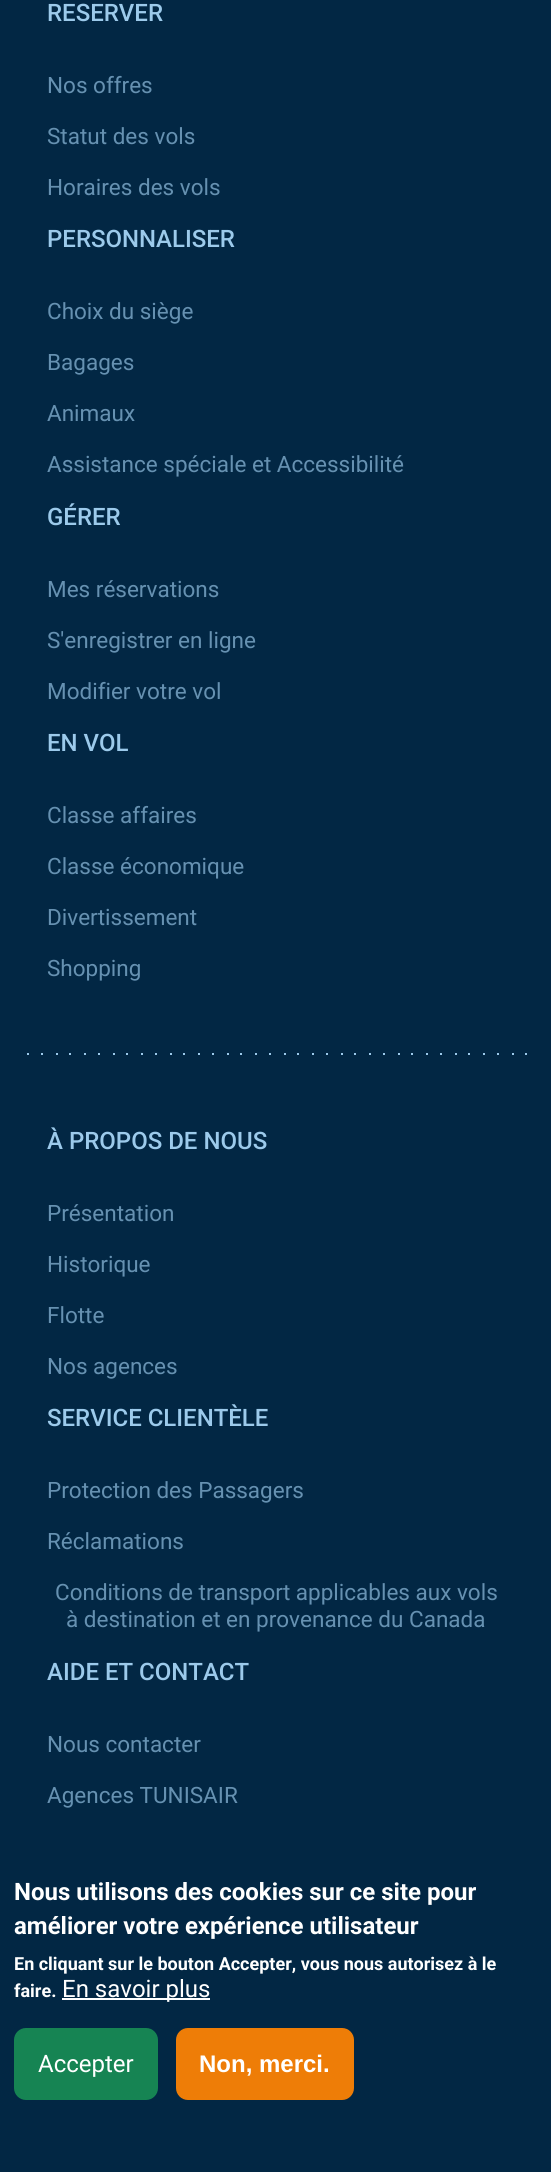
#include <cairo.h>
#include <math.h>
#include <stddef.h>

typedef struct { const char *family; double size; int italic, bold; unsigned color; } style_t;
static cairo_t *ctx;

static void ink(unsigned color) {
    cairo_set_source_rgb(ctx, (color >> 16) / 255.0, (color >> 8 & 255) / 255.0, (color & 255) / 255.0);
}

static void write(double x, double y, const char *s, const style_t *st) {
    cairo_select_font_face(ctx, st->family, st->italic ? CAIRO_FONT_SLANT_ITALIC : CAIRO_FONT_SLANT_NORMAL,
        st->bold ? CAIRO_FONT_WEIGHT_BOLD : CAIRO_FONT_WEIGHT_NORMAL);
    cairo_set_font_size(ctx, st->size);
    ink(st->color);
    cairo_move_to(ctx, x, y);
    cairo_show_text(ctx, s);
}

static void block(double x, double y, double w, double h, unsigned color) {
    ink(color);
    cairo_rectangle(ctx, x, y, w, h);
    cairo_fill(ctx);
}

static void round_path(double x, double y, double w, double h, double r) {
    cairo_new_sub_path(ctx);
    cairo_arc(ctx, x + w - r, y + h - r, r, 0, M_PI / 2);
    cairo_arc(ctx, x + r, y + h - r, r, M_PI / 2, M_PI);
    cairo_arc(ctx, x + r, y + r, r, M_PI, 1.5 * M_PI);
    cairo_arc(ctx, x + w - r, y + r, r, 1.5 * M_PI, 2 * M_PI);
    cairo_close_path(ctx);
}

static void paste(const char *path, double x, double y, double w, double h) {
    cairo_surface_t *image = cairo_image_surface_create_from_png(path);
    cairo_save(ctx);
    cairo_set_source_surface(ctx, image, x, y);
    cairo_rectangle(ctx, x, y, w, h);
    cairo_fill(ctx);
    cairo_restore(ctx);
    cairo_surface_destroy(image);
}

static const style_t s1 = {"Roboto Medium", 24, 0, 0, 0x9ccaeb};
static const style_t s2 = {"Roboto", 22.5, 0, 0, 0x6691b1};
static const style_t s3 = {"Roboto", 24, 0, 1, 0xffffff};
static const style_t s4 = {"Roboto", 18, 0, 1, 0xffffff};
static const style_t s5 = {"Roboto", 24, 0, 0, 0xffffff};
static const style_t s6 = {"Liberation Sans", 24, 0, 1, 0xffffff};

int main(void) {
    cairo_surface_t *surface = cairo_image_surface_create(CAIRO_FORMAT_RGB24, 551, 2172);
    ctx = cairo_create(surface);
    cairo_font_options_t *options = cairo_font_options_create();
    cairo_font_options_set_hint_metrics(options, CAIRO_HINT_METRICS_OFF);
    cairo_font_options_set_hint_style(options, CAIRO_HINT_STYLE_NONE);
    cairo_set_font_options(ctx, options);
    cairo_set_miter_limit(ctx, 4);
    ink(0x022744);
    cairo_paint(ctx);
    write(47, 21, "RESERVER", &s1);
    write(47, 93, "Nos offres", &s2);
    write(47, 144, "Statut des vols", &s2);
    write(47, 195, "Horaires des vols", &s2);
    write(47, 247, "PERSONNALISER", &s1);
    write(47, 319, "Choix du siège", &s2);
    write(47, 370, "Bagages", &s2);
    write(47, 421, "Animaux", &s2);
    write(47, 472, "Assistance spéciale et Accessibilité", &s2);
    write(47, 525, "GÉRER", &s1);
    write(47, 597, "Mes réservations", &s2);
    write(47, 648, "S'enregistrer en ligne", &s2);
    write(47, 699, "Modifier votre vol", &s2);
    write(47, 751, "EN VOL", &s1);
    write(47, 823, "Classe affaires", &s2);
    write(47, 874, "Classe économique", &s2);
    write(47, 925, "Divertissement", &s2);
    write(47, 976, "Shopping", &s2);
    paste("pic1.png", 27, 1053, 500, 2);
    write(47, 1149, "À PROPOS DE NOUS", &s1);
    write(47, 1221, "Présentation", &s2);
    write(47, 1272, "Historique", &s2);
    write(47, 1323, "Flotte", &s2);
    write(47, 1374, "Nos agences", &s2);
    write(47, 1426, "SERVICE CLIENTÈLE", &s1);
    write(47, 1498, "Protection des Passagers", &s2);
    write(47, 1549, "Réclamations", &s2);
    write(55, 1600, "Conditions de transport applicables aux vols", &s2);
    write(66, 1627, "à destination et en provenance du Canada", &s2);
    write(47, 1680, "AIDE ET CONTACT", &s1);
    write(47, 1752, "Nous contacter", &s2);
    write(47, 1803, "Agences TUNISAIR", &s2);
    write(14, 1900, "Nous utilisons des cookies sur ce site pour", &s3);
    write(14, 1934, "améliorer votre expérience utilisateur", &s3);
    write(14, 1970, "En cliquant sur le bouton Accepter, vous nous autorisez à le", &s4);
    write(14, 1997, "faire.", &s4);
    block(62, 1998, 148, 2, 0xffffff);
    write(62, 1997, "En savoir plus", &s5);
    ink(0x168453);
    round_path(14, 2028, 144, 72, 12);
    cairo_fill(ctx);
    write(38, 2072, "Accepter", &s5);
    ink(0xee7d07);
    round_path(176, 2028, 178, 72, 12);
    cairo_fill(ctx);
    write(199, 2072, "Non, merci.", &s6);
    cairo_surface_write_to_png(surface, "screenshot.png");
    cairo_font_options_destroy(options);
    cairo_destroy(ctx);
    cairo_surface_destroy(surface);
    return 0;
}
